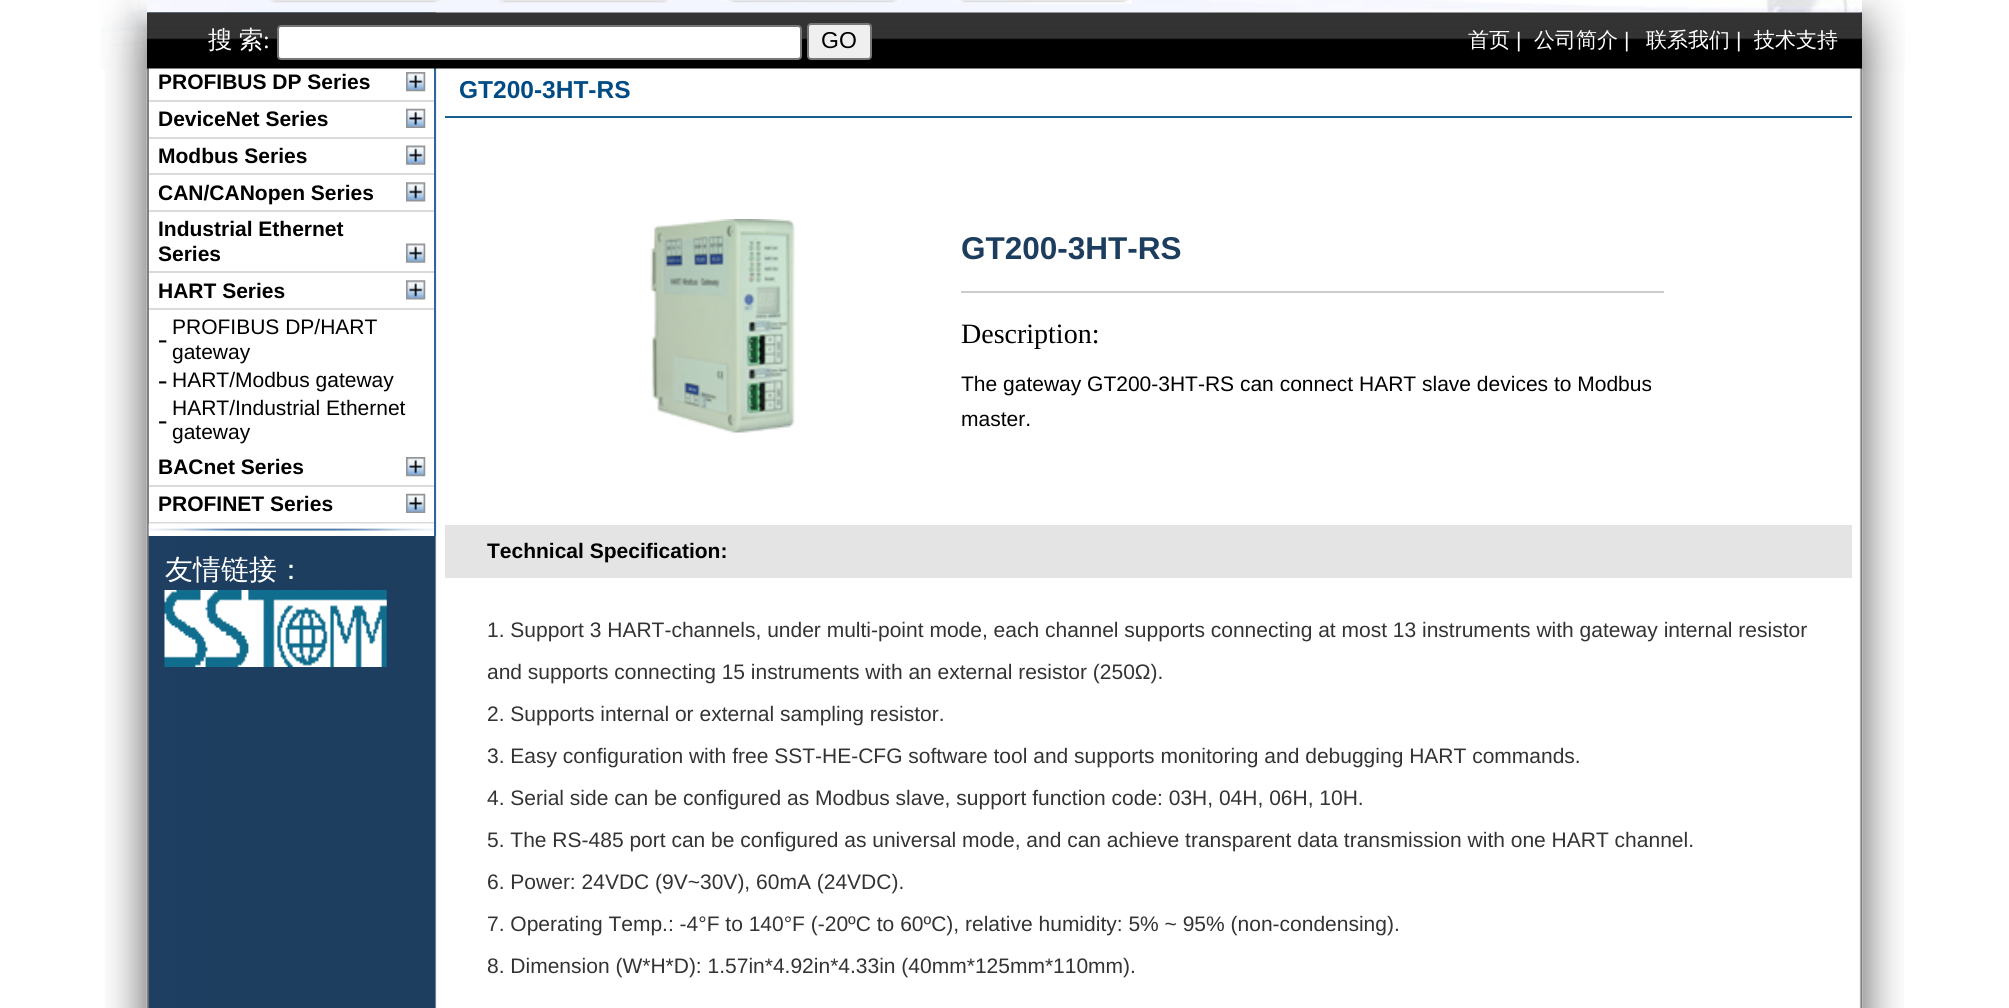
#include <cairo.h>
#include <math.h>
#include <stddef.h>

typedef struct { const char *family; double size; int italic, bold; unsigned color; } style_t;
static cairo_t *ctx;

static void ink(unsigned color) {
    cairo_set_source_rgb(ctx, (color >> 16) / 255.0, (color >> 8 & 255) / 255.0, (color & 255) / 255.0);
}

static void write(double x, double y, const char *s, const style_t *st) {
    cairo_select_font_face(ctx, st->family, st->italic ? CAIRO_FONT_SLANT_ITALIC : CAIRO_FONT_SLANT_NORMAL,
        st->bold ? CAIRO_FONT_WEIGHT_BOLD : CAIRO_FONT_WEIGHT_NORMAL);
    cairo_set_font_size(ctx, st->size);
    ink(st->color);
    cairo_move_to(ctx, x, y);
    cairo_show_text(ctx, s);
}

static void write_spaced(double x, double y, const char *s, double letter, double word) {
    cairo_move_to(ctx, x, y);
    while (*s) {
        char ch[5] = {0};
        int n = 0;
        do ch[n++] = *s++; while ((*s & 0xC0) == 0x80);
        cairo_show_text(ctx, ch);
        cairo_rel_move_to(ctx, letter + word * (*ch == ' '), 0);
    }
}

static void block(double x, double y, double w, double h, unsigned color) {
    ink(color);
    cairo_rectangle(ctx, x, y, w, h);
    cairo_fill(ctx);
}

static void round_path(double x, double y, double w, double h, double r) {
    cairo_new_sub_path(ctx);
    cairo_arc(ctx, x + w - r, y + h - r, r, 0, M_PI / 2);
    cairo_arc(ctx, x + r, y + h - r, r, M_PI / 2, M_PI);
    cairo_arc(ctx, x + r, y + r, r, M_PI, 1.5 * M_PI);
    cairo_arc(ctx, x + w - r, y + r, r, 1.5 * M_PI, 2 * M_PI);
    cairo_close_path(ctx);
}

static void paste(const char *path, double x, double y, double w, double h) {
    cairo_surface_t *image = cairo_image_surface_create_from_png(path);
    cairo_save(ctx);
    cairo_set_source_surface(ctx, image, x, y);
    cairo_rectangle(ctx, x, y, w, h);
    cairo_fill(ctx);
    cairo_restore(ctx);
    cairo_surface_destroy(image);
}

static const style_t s1 = {"Liberation Serif", 24.5, 0, 0, 0xffffff};
static const style_t s2 = {"Liberation Sans", 23, 0, 0, 0x000000};
static const style_t s3 = {"WenQuanYi Zen Hei Medium", 21, 0, 0, 0xffffff};
static const style_t s4 = {"Liberation Sans", 21, 0, 0, 0xffffff};
static const style_t s5 = {"Liberation Sans", 21, 0, 1, 0x000000};
static const style_t s6 = {"Liberation Serif", 28, 0, 0, 0x000000};
static const style_t s7 = {"Liberation Sans", 21, 0, 0, 0x000000};
static const style_t s8 = {"WenQuanYi Zen Hei Medium", 28, 0, 0, 0xffffff};
static const style_t s9 = {"Liberation Sans", 24.5, 0, 1, 0x004b84};
static const style_t s10 = {"Liberation Sans", 31.5, 0, 1, 0x1c3d5e};
static const style_t s11 = {"Liberation Sans", 21, 0, 0, 0x333333};

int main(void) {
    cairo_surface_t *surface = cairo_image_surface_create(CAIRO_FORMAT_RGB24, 2009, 1008);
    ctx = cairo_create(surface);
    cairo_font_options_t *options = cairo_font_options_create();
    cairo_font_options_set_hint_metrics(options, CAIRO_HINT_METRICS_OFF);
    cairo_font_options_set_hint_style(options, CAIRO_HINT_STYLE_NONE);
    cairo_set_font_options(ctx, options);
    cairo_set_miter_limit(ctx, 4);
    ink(0xffffff);
    cairo_paint(ctx);
    paste("pic1.png", 105, 70, 1799, 938);
    paste("pic2.png", 147, 12, 1715, 996);
    paste("pic3.png", 100, 0, 47, 71);
    paste("pic11.png", 147, 12, 289, 1);
    paste("pic4.png", 147, 0, 1715, 13);
    paste("pic5.png", 269, 0, 176, 3);
    paste("pic6.png", 497, 0, 176, 4);
    paste("pic7.png", 721, 0, 181, 3);
    paste("pic8.png", 952, 0, 180, 4);
    paste("pic9.png", 1862, 0, 43, 71);
    block(149, 68, 285, 468, 0xffffff);
    block(434, 65, 2, 471, 0x31649d);
    block(148, 65, 1, 471, 0x808080);
    paste("pic10.png", 147, 12, 1715, 57);
    cairo_select_font_face(ctx, "WenQuanYi Zen Hei Medium", CAIRO_FONT_SLANT_NORMAL, CAIRO_FONT_WEIGHT_NORMAL);
    cairo_set_font_size(ctx, 24.5);
    ink(0xffffff);
    write_spaced(208, 48, "搜 索", 0, -1);
    write(263, 48, ":", &s1);
    round_path(278, 26, 523, 33, 3);
    cairo_fill_preserve(ctx);
    ink(0x767676);
    cairo_stroke(ctx);
    ink(0xefefef);
    round_path(808, 24, 63, 35, 3);
    cairo_fill_preserve(ctx);
    ink(0x767676);
    cairo_stroke(ctx);
    write(821, 48, "GO", &s2);
    write(1468, 47, "首页", &s3);
    write(1516, 47, "|", &s4);
    write(1534, 47, "公司简介", &s3);
    write(1624, 47, "|", &s4);
    write(1646, 47, "联系我们", &s3);
    write(1736, 47, "|", &s4);
    write(1754, 47, "技术支持", &s3);
    block(149, 100, 285, 2, 0xdadada);
    write(158, 89, "PROFIBUS DP Series", &s5);
    paste("pic12.png", 406, 72, 20, 20);
    block(149, 137, 285, 2, 0xdadada);
    write(158, 126, "DeviceNet Series", &s5);
    paste("pic13.png", 406, 108, 20, 20);
    block(149, 173, 285, 2, 0xdadada);
    write(158, 163, "Modbus Series", &s5);
    paste("pic14.png", 406, 145, 20, 20);
    block(149, 210, 285, 2, 0xdadada);
    write(158, 200, "CAN/CANopen Series", &s5);
    paste("pic15.png", 406, 182, 20, 20);
    block(149, 271, 285, 2, 0xdadada);
    write(158, 236, "Industrial Ethernet", &s5);
    write(158, 261, "Series", &s5);
    paste("pic14.png", 406, 243, 20, 20);
    block(149, 308, 285, 2, 0xdadada);
    write(158, 298, "HART Series", &s5);
    paste("pic15.png", 406, 280, 20, 20);
    write(158, 348, "-", &s6);
    write(172, 334, "PROFIBUS DP/HART", &s7);
    write(172, 359, "gateway", &s7);
    write(158, 389, "-", &s6);
    write(172, 387, "HART/Modbus gateway", &s7);
    write(158, 429, "-", &s6);
    write(172, 415, "HART/Industrial Ethernet", &s7);
    write(172, 439, "gateway", &s7);
    block(149, 485, 285, 2, 0xdadada);
    write(158, 474, "BACnet Series", &s5);
    paste("pic12.png", 406, 457, 20, 20);
    block(149, 522, 285, 2, 0xdadada);
    write(158, 511, "PROFINET Series", &s5);
    paste("pic13.png", 406, 493, 20, 20);
    paste("pic16.png", 148, 523, 286, 13);
    write(165, 579, "友情链接：", &s8);
    paste("pic17.png", 164, 590, 223, 77);
    block(445, 116, 1407, 2, 0x1a5d91);
    write(459, 98, "GT200-3HT-RS", &s9);
    paste("pic18.png", 650, 219, 145, 214);
    block(961, 291, 703, 2, 0xcccccc);
    write(961, 259, "GT200-3HT-RS", &s10);
    write(961, 343, "Description:", &s6);
    write(961, 391, "The gateway GT200-3HT-RS can connect HART slave devices to Modbus", &s7);
    write(961, 426, "master.", &s7);
    block(445, 525, 1407, 53, 0xe4e4e4);
    write(487, 558, "Technical Specification:", &s5);
    write(487, 637, "1. Support 3 HART-channels, under multi-point mode, each channel supports connecting at most 13 instruments with gateway internal resistor", &s11);
    write(487, 679, "and supports connecting 15 instruments with an external resistor (250Ω).", &s11);
    write(487, 721, "2. Supports internal or external sampling resistor.", &s11);
    write(487, 763, "3. Easy configuration with free SST-HE-CFG software tool and supports monitoring and debugging HART commands.", &s11);
    write(487, 805, "4. Serial side can be configured as Modbus slave, support function code: 03H, 04H, 06H, 10H.", &s11);
    write(487, 847, "5. The RS-485 port can be configured as universal mode, and can achieve transparent data transmission with one HART channel.", &s11);
    write(487, 889, "6. Power: 24VDC (9V~30V), 60mA (24VDC).", &s11);
    write(487, 931, "7. Operating Temp.: -4°F to 140°F (-20ºC to 60ºC), relative humidity: 5% ~ 95% (non-condensing).", &s11);
    write(487, 973, "8. Dimension (W*H*D): 1.57in*4.92in*4.33in (40mm*125mm*110mm).", &s11);
    cairo_surface_write_to_png(surface, "screenshot.png");
    cairo_font_options_destroy(options);
    cairo_destroy(ctx);
    cairo_surface_destroy(surface);
    return 0;
}
